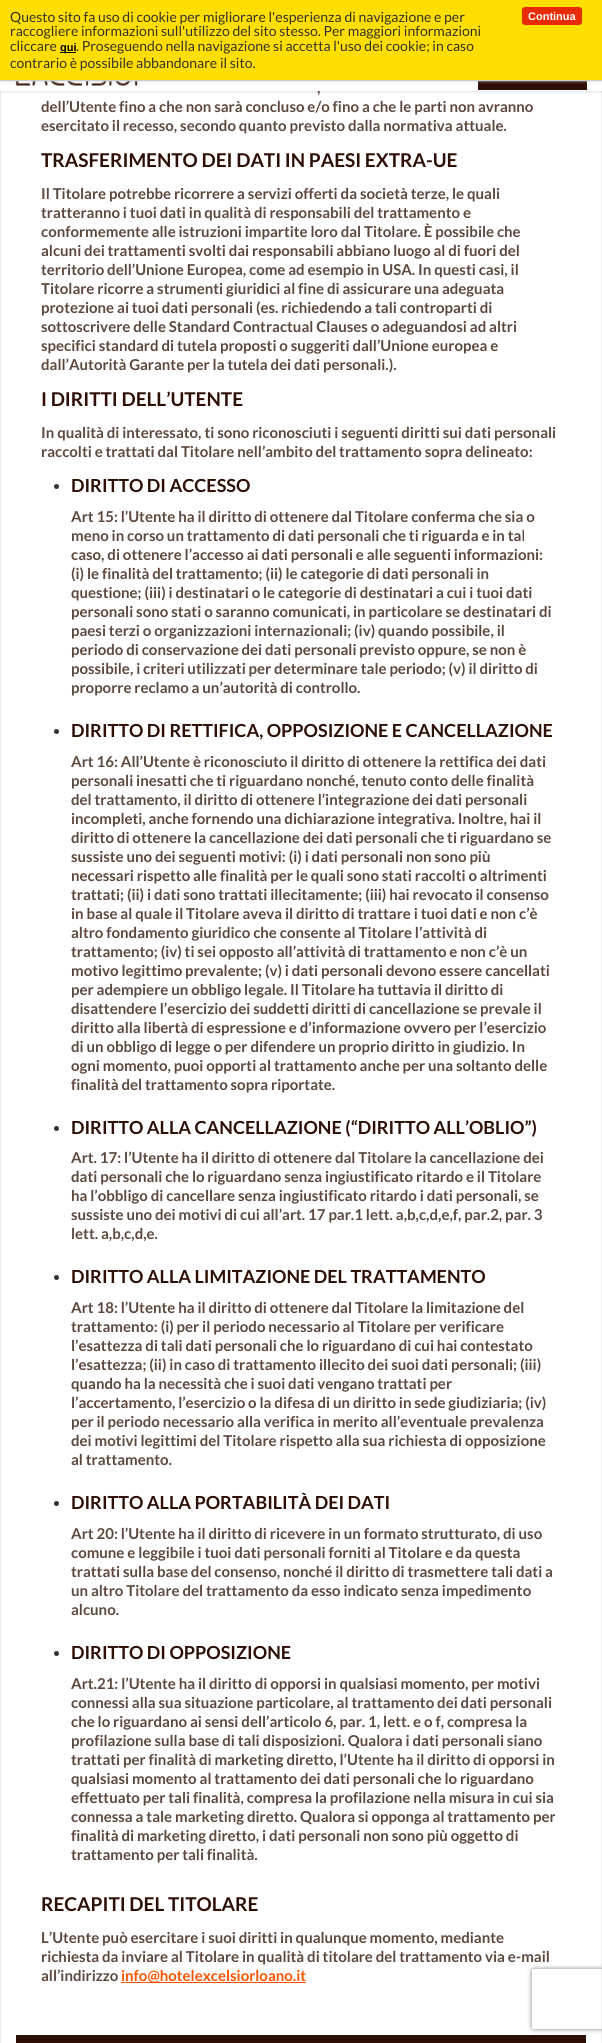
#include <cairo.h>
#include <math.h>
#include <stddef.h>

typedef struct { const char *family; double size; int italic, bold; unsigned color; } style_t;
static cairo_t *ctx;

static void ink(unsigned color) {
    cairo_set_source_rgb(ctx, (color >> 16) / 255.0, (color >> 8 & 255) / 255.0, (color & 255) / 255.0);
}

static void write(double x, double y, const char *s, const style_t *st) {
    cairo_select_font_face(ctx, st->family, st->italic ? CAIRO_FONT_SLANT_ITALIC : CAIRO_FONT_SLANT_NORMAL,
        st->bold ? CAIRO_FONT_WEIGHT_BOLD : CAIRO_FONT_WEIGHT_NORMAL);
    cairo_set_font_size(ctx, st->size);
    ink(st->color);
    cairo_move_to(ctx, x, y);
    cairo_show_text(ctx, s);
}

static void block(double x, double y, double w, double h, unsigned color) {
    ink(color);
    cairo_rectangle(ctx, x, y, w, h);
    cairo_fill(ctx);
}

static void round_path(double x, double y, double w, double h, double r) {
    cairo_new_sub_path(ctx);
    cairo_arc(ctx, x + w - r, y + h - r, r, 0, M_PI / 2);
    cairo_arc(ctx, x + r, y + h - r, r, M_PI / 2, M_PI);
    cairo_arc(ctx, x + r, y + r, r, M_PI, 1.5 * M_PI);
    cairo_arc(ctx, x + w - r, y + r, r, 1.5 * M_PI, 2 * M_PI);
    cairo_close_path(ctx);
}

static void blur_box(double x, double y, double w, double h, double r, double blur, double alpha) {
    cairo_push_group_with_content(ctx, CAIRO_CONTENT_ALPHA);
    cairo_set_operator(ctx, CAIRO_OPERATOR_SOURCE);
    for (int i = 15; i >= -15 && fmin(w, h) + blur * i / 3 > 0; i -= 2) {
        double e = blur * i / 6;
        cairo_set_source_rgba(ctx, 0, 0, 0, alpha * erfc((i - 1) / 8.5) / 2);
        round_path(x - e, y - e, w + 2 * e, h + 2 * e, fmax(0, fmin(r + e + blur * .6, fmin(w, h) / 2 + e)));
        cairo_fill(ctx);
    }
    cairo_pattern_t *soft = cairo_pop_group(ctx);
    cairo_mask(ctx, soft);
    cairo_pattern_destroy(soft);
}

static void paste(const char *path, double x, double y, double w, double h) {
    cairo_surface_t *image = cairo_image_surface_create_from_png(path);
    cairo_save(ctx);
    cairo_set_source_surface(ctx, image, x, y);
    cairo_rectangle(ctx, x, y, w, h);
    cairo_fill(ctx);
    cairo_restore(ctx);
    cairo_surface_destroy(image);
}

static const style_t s1 = {"Lato", 15, 0, 1, 0x5d483e};
static const style_t s2 = {"Lato", 14, 0, 0, 0x333333};
static const style_t s3 = {"Liberation Sans", 11, 0, 1, 0x000000};
static const style_t s4 = {"Liberation Sans", 11, 0, 1, 0xffffff};
static const style_t s5 = {"Lato", 19, 0, 1, 0x2d0f06};
static const style_t s6 = {"Lato", 18, 0, 1, 0x2d0f06};
static const style_t s7 = {"Lato", 15, 0, 1, 0xff5400};

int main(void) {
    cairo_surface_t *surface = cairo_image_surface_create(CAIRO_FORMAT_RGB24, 602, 2043);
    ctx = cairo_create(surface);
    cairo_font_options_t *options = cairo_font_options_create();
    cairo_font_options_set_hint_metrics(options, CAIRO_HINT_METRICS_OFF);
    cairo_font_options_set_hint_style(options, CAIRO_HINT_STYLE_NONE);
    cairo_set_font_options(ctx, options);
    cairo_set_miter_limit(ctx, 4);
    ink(0xffffff);
    cairo_paint(ctx);
    block(601, 81, 1, 1962, 0xebebeb);
    block(0, 81, 1, 1962, 0xebebeb);
    cairo_save(ctx);
    cairo_rectangle(ctx, 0, 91, 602, 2);
    cairo_clip(ctx);
    ink(0x000000);
    blur_box(0, 11, 602, 81, 0, 1.5, 0.12);
    cairo_restore(ctx);
    write(317, 93, ",", &s1);
    cairo_set_source_rgba(ctx, 1, 1, 1, 0.97);
    cairo_rectangle(ctx, 0, 81, 602, 10);
    cairo_fill(ctx);
    paste("pic1.png", 15, 81, 123, 5);
    block(478, 81, 109, 9, 0x2d0f06);
    ink(0xcccccc);
    blur_box(0, 0, 602, 81, 0, 1.5, 1);
    block(0, 0, 602, 80, 0xffde00);
    block(0, 80, 602, 1, 0xcccccc);
    write(10, 22, "Questo sito fa uso di cookie per migliorare l'esperienza di navigazione e per", &s2);
    write(10, 36, "raccogliere informazioni sull'utilizzo del sito stesso. Per maggiori informazioni", &s2);
    write(10, 51, "cliccare", &s2);
    block(60, 52, 16, 1, 0x000000);
    write(60, 51, "qui", &s3);
    write(76, 51, ". Proseguendo nella navigazione si accetta l'uso dei cookie; in caso", &s2);
    write(10, 68, "contrario è possibile abbandonare il sito.", &s2);
    ink(0xe82b05);
    round_path(522, 7, 60, 18, 3);
    cairo_fill(ctx);
    write(528, 20, "Continua", &s4);
    write(41, 112, "dell’Utente fino a che non sarà concluso e/o fino a che le parti non avranno", &s1);
    write(41, 131, "esercitato il recesso, secondo quanto previsto dalla normativa attuale.", &s1);
    write(41, 167, "TRASFERIMENTO DEI DATI IN PAESI EXTRA-UE", &s5);
    write(41, 199, "Il Titolare potrebbe ricorrere a servizi offerti da società terze, le quali", &s1);
    write(41, 218, "tratteranno i tuoi dati in qualità di responsabili del trattamento e", &s1);
    write(41, 237, "conformemente alle istruzioni impartite loro dal Titolare. È possibile che", &s1);
    write(41, 256, "alcuni dei trattamenti svolti dai responsabili abbiano luogo al di fuori del", &s1);
    write(41, 275, "territorio dell’Unione Europea, come ad esempio in USA. In questi casi, il", &s1);
    write(41, 294, "Titolare ricorre a strumenti giuridici al fine di assicurare una adeguata", &s1);
    write(41, 313, "protezione ai tuoi dati personali (es. richiedendo a tali controparti di", &s1);
    write(41, 332, "sottoscrivere delle Standard Contractual Clauses o adeguandosi ad altri", &s1);
    write(41, 351, "specifici standard di tutela proposti o suggeriti dall’Unione europea e", &s1);
    write(41, 370, "dall’Autorità Garante per la tutela dei dati personali.).", &s1);
    write(41, 406, "I DIRITTI DELL’UTENTE", &s5);
    write(41, 438, "In qualità di interessato, ti sono riconosciuti i seguenti diritti sui dati personali", &s1);
    write(41, 457, "raccolti e trattati dal Titolare nell’ambito del trattamento sopra delineato:", &s1);
    ink(0x333333);
    cairo_new_path(ctx);
    cairo_arc(ctx, 56.5, 486.5, 2.5, 0, 2 * M_PI);
    cairo_fill(ctx);
    write(71, 492, "DIRITTO DI ACCESSO", &s6);
    write(71, 522, "Art 15: l’Utente ha il diritto di ottenere dal Titolare conferma che sia o", &s1);
    write(71, 541, "meno in corso un trattamento di dati personali che ti riguarda e in tal", &s1);
    write(71, 560, "caso, di ottenere l’accesso ai dati personali e alle seguenti informazioni:", &s1);
    write(71, 579, "(i) le finalità del trattamento; (ii) le categorie di dati personali in", &s1);
    write(71, 598, "questione; (iii) i destinatari o le categorie di destinatari a cui i tuoi dati", &s1);
    write(71, 617, "personali sono stati o saranno comunicati, in particolare se destinatari di", &s1);
    write(71, 636, "paesi terzi o organizzazioni internazionali; (iv) quando possibile, il", &s1);
    write(71, 655, "periodo di conservazione dei dati personali previsto oppure, se non è", &s1);
    write(71, 674, "possibile, i criteri utilizzati per determinare tale periodo; (v) il diritto di", &s1);
    write(71, 693, "proporre reclamo a un’autorità di controllo.", &s1);
    ink(0x333333);
    cairo_new_path(ctx);
    cairo_arc(ctx, 56.5, 731.5, 2.5, 0, 2 * M_PI);
    cairo_fill(ctx);
    write(71, 737, "DIRITTO DI RETTIFICA, OPPOSIZIONE E CANCELLAZIONE", &s6);
    write(71, 767, "Art 16: All’Utente è riconosciuto il diritto di ottenere la rettifica dei dati", &s1);
    write(71, 786, "personali inesatti che ti riguardano nonché, tenuto conto delle finalità", &s1);
    write(71, 805, "del trattamento, il diritto di ottenere l’integrazione dei dati personali", &s1);
    write(71, 824, "incompleti, anche fornendo una dichiarazione integrativa. Inoltre, hai il", &s1);
    write(71, 843, "diritto di ottenere la cancellazione dei dati personali che ti riguardano se", &s1);
    write(71, 862, "sussiste uno dei seguenti motivi: (i) i dati personali non sono più", &s1);
    write(71, 881, "necessari rispetto alle finalità per le quali sono stati raccolti o altrimenti", &s1);
    write(71, 900, "trattati; (ii) i dati sono trattati illecitamente; (iii) hai revocato il consenso", &s1);
    write(71, 919, "in base al quale il Titolare aveva il diritto di trattare i tuoi dati e non c’è", &s1);
    write(71, 938, "altro fondamento giuridico che consente al Titolare l’attività di", &s1);
    write(71, 957, "trattamento; (iv) ti sei opposto all’attività di trattamento e non c’è un", &s1);
    write(71, 976, "motivo legittimo prevalente; (v) i dati personali devono essere cancellati", &s1);
    write(71, 995, "per adempiere un obbligo legale. Il Titolare ha tuttavia il diritto di", &s1);
    write(71, 1014, "disattendere l’esercizio dei suddetti diritti di cancellazione se prevale il", &s1);
    write(71, 1033, "diritto alla libertà di espressione e d’informazione ovvero per l’esercizio", &s1);
    write(71, 1052, "di un obbligo di legge o per difendere un proprio diritto in giudizio. In", &s1);
    write(71, 1071, "ogni momento, puoi opporti al trattamento anche per una soltanto delle", &s1);
    write(71, 1090, "finalità del trattamento sopra riportate.", &s1);
    ink(0x333333);
    cairo_new_path(ctx);
    cairo_arc(ctx, 56.5, 1128.5, 2.5, 0, 2 * M_PI);
    cairo_fill(ctx);
    write(71, 1134, "DIRITTO ALLA CANCELLAZIONE (“DIRITTO ALL’OBLIO”)", &s6);
    write(71, 1163, "Art. 17: l’Utente ha il diritto di ottenere dal Titolare la cancellazione dei", &s1);
    write(71, 1182, "dati personali che lo riguardano senza ingiustificato ritardo e il Titolare", &s1);
    write(71, 1201, "ha l’obbligo di cancellare senza ingiustificato ritardo i dati personali, se", &s1);
    write(71, 1220, "sussiste uno dei motivi di cui all’art. 17 par.1 lett. a,b,c,d,e,f, par.2, par. 3", &s1);
    write(71, 1239, "lett. a,b,c,d,e.", &s1);
    ink(0x333333);
    cairo_new_path(ctx);
    cairo_arc(ctx, 56.5, 1277.5, 2.5, 0, 2 * M_PI);
    cairo_fill(ctx);
    write(71, 1283, "DIRITTO ALLA LIMITAZIONE DEL TRATTAMENTO", &s6);
    write(71, 1313, "Art 18: l’Utente ha il diritto di ottenere dal Titolare la limitazione del", &s1);
    write(71, 1332, "trattamento: (i) per il periodo necessario al Titolare per verificare", &s1);
    write(71, 1351, "l’esattezza di tali dati personali che lo riguardano di cui hai contestato", &s1);
    write(71, 1370, "l’esattezza; (ii) in caso di trattamento illecito dei suoi dati personali; (iii)", &s1);
    write(71, 1389, "quando ha la necessità che i suoi dati vengano trattati per", &s1);
    write(71, 1408, "l’accertamento, l’esercizio o la difesa di un diritto in sede giudiziaria; (iv)", &s1);
    write(71, 1427, "per il periodo necessario alla verifica in merito all’eventuale prevalenza", &s1);
    write(71, 1446, "dei motivi legittimi del Titolare rispetto alla sua richiesta di opposizione", &s1);
    write(71, 1465, "al trattamento.", &s1);
    ink(0x333333);
    cairo_new_path(ctx);
    cairo_arc(ctx, 56.5, 1503.5, 2.5, 0, 2 * M_PI);
    cairo_fill(ctx);
    write(71, 1509, "DIRITTO ALLA PORTABILITÀ DEI DATI", &s6);
    write(71, 1539, "Art 20: l’Utente ha il diritto di ricevere in un formato strutturato, di uso", &s1);
    write(71, 1558, "comune e leggibile i tuoi dati personali forniti al Titolare e da questa", &s1);
    write(71, 1577, "trattati sulla base del consenso, nonché il diritto di trasmettere tali dati a", &s1);
    write(71, 1596, "un altro Titolare del trattamento da esso indicato senza impedimento", &s1);
    write(71, 1615, "alcuno.", &s1);
    ink(0x333333);
    cairo_new_path(ctx);
    cairo_arc(ctx, 56.5, 1653.5, 2.5, 0, 2 * M_PI);
    cairo_fill(ctx);
    write(71, 1659, "DIRITTO DI OPPOSIZIONE", &s6);
    write(71, 1689, "Art.21: l’Utente ha il diritto di opporsi in qualsiasi momento, per motivi", &s1);
    write(71, 1708, "connessi alla sua situazione particolare, al trattamento dei dati personali", &s1);
    write(71, 1727, "che lo riguardano ai sensi dell’articolo 6, par. 1, lett. e o f, compresa la", &s1);
    write(71, 1746, "profilazione sulla base di tali disposizioni. Qualora i dati personali siano", &s1);
    write(71, 1765, "trattati per finalità di marketing diretto, l’Utente ha il diritto di opporsi in", &s1);
    write(71, 1784, "qualsiasi momento al trattamento dei dati personali che lo riguardano", &s1);
    write(71, 1803, "effettuato per tali finalità, compresa la profilazione nella misura in cui sia", &s1);
    write(71, 1822, "connessa a tale marketing diretto. Qualora si opponga al trattamento per", &s1);
    write(71, 1841, "finalità di marketing diretto, i dati personali non sono più oggetto di", &s1);
    write(71, 1860, "trattamento per tali finalità.", &s1);
    write(41, 1911, "RECAPITI DEL TITOLARE", &s5);
    write(41, 1943, "L’Utente può esercitare i suoi diritti in qualunque momento, mediante", &s1);
    write(41, 1962, "richiesta da inviare al Titolare in qualità di titolare del trattamento via e-mail", &s1);
    write(41, 1981, "all’indirizzo", &s1);
    block(121, 1982, 185, 1, 0xff5400);
    write(121, 1981, "info@hotelexcelsiorloano.it", &s7);
    block(16, 2035, 570, 8, 0x2d0f06);
    cairo_save(ctx);
    cairo_set_fill_rule(ctx, CAIRO_FILL_RULE_EVEN_ODD);
    cairo_new_path(ctx);
    cairo_move_to(ctx, 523, 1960);
    cairo_line_to(ctx, 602, 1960);
    cairo_line_to(ctx, 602, 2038);
    cairo_line_to(ctx, 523, 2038);
    cairo_close_path(ctx);
    cairo_move_to(ctx, 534, 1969);
    cairo_line_to(ctx, 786, 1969);
    cairo_curve_to(ctx, 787, 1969, 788, 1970, 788, 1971);
    cairo_line_to(ctx, 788, 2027);
    cairo_curve_to(ctx, 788, 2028, 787, 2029, 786, 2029);
    cairo_line_to(ctx, 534, 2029);
    cairo_curve_to(ctx, 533, 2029, 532, 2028, 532, 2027);
    cairo_line_to(ctx, 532, 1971);
    cairo_curve_to(ctx, 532, 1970, 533, 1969, 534, 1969);
    cairo_close_path(ctx);
    cairo_clip(ctx);
    ink(0x808080);
    blur_box(532, 1969, 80, 60, 2, 2.5, 1);
    cairo_restore(ctx);
    cairo_surface_write_to_png(surface, "screenshot.png");
    cairo_font_options_destroy(options);
    cairo_destroy(ctx);
    cairo_surface_destroy(surface);
    return 0;
}
